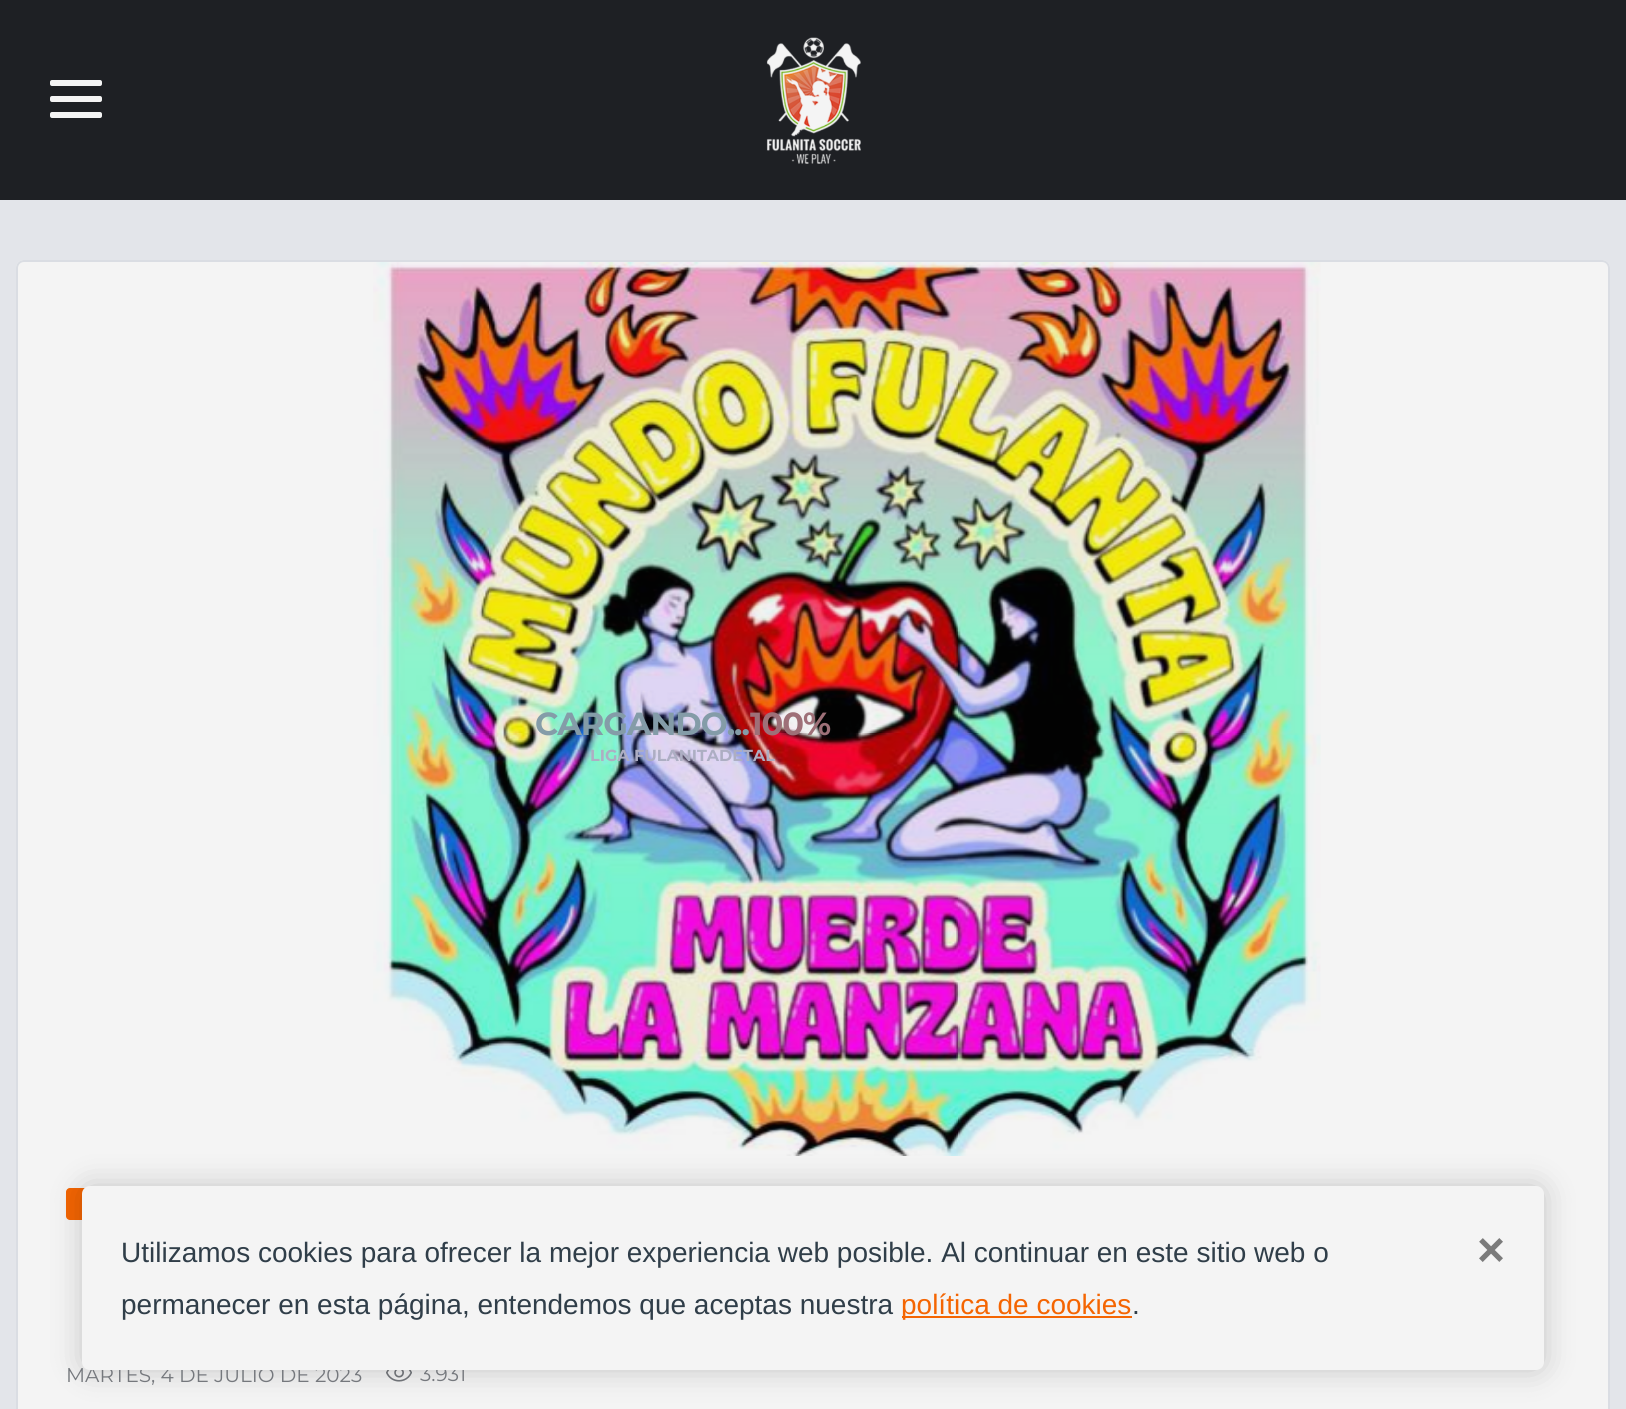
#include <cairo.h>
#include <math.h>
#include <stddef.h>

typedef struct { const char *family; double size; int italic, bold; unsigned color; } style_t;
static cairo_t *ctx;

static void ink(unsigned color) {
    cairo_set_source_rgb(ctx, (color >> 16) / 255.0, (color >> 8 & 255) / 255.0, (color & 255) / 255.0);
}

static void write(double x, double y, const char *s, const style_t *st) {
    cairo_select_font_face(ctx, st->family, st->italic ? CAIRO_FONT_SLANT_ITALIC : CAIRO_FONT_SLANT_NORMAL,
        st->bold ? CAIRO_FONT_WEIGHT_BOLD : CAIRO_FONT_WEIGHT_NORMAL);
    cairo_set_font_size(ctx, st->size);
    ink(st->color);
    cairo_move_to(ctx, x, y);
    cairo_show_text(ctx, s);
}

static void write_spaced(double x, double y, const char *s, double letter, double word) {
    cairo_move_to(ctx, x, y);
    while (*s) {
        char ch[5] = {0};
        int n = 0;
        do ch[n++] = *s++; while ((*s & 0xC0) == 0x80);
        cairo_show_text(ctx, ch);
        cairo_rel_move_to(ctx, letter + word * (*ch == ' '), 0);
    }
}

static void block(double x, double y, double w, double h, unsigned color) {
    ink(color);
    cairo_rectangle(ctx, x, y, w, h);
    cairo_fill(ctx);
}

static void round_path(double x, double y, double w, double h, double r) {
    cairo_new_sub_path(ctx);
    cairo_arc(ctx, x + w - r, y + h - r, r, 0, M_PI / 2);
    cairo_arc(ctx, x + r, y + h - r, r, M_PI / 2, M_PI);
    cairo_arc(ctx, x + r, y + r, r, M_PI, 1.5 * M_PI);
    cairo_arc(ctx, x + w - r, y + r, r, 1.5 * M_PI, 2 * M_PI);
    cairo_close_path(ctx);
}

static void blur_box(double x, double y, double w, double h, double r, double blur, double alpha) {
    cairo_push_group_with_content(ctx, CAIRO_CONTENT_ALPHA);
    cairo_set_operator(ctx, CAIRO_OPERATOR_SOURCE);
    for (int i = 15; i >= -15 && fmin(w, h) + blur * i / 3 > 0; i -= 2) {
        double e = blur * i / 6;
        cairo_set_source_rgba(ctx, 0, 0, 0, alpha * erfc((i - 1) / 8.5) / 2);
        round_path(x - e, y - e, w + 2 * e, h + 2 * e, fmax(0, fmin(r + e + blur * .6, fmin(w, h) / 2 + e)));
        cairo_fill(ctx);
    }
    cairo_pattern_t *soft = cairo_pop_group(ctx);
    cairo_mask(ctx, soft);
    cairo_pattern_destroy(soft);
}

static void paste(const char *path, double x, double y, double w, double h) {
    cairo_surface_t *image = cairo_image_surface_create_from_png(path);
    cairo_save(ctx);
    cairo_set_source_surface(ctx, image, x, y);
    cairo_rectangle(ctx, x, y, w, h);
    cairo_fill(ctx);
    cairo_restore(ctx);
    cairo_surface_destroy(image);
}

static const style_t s1 = {"Montserrat", 16, 0, 1, 0xadaec3};
static const style_t s2 = {"Montserrat", 20, 0, 0, 0x75787d};
static const style_t s3 = {"Liberation Sans", 28, 0, 0, 0x303e49};
static const style_t s4 = {"Liberation Sans", 28, 0, 0, 0xf46502};
static const style_t s5 = {"Liberation Sans", 48, 0, 1, 0x7b7b7b};

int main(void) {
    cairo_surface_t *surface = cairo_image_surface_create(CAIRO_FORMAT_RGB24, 1626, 1409);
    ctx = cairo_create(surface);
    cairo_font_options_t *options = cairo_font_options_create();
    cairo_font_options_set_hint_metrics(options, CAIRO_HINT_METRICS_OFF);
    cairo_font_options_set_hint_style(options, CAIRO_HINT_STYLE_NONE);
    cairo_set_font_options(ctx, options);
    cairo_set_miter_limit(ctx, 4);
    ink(0xe3e5ea);
    cairo_paint(ctx);
    ink(0xf4f4f4);
    cairo_new_path(ctx);
    cairo_move_to(ctx, 24, 260);
    cairo_line_to(ctx, 1602, 260);
    cairo_curve_to(ctx, 1606.5, 260, 1610, 263.5, 1610, 268);
    cairo_line_to(ctx, 1610, 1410);
    cairo_line_to(ctx, 16, 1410);
    cairo_line_to(ctx, 16, 268);
    cairo_curve_to(ctx, 16, 263.5, 19.5, 260, 24, 260);
    cairo_close_path(ctx);
    cairo_fill(ctx);
    round_path(17, 261, 1592, 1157, 7);
    ink(0xdadde3);
    cairo_stroke(ctx);
    paste("pic2.png", 373, 262, 948, 894);
    cairo_select_font_face(ctx, "Montserrat", CAIRO_FONT_SLANT_NORMAL, CAIRO_FONT_WEIGHT_BOLD);
    cairo_set_font_size(ctx, 32);
    ink(0x849ca8);
    write_spaced(535, 735, "CARGANDO...", -1, 0);
    ink(0x9e7078);
    write_spaced(750, 735, "100%", -1, 0);
    write(590, 761, "LIGA FULANITADETAL", &s1);
    ink(0xf46502);
    round_path(66, 1188, 106, 32, 4);
    cairo_fill(ctx);
    paste("pic3.png", 386, 1370, 26, 12);
    ink(0x020202);
    blur_box(82, 1186, 1462, 184, 8, 15, 0.2);
    write(66, 1382, "MARTES, 4 DE JULIO DE 2023", &s2);
    write(420, 1381, "3.931", &s2);
    ink(0xf4f4f4);
    round_path(82, 1186, 1462, 184, 8);
    cairo_fill(ctx);
    write(121, 1262, "Utilizamos cookies para ofrecer la mejor experiencia web posible. Al continuar en este sitio web o", &s3);
    write(121, 1314, "permanecer en esta página, entendemos que aceptas nuestra", &s3);
    block(902, 1316, 230, 2, 0xf46502);
    write(901, 1314, "política de cookies", &s4);
    write(1132, 1314, ".", &s3);
    write(1477, 1266, "×", &s5);
    block(0, 0, 1626, 200, 0x1e2024);
    ink(0xf4f4f4);
    round_path(50, 80, 52, 6, 2);
    cairo_fill(ctx);
    round_path(50, 96, 52, 6, 2);
    cairo_fill(ctx);
    round_path(50, 112, 52, 6, 2);
    cairo_fill(ctx);
    paste("pic1.png", 766, 37, 95, 127);
    cairo_surface_write_to_png(surface, "screenshot.png");
    cairo_font_options_destroy(options);
    cairo_destroy(ctx);
    cairo_surface_destroy(surface);
    return 0;
}
